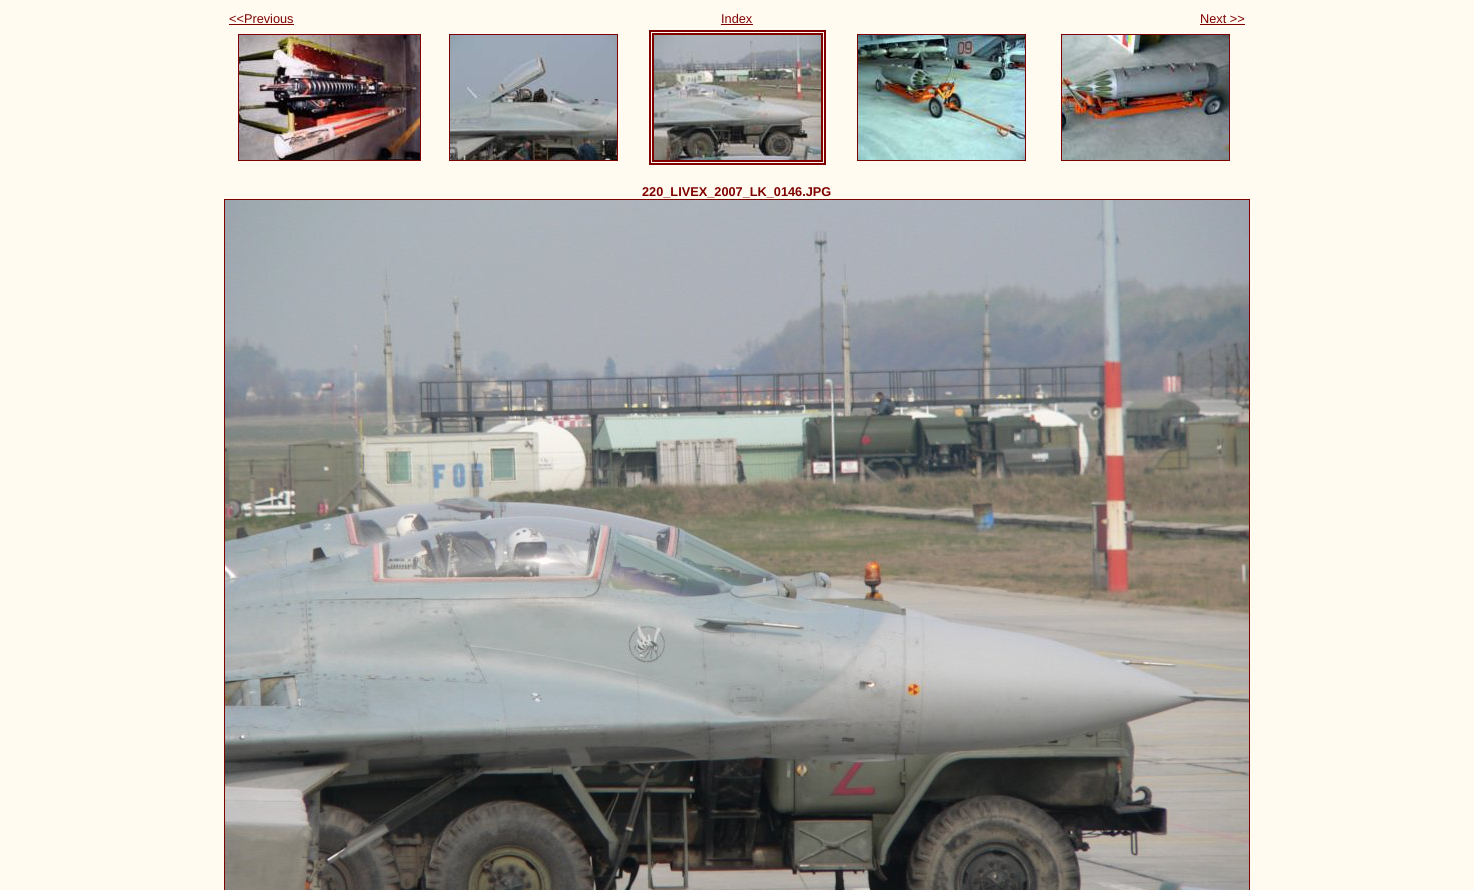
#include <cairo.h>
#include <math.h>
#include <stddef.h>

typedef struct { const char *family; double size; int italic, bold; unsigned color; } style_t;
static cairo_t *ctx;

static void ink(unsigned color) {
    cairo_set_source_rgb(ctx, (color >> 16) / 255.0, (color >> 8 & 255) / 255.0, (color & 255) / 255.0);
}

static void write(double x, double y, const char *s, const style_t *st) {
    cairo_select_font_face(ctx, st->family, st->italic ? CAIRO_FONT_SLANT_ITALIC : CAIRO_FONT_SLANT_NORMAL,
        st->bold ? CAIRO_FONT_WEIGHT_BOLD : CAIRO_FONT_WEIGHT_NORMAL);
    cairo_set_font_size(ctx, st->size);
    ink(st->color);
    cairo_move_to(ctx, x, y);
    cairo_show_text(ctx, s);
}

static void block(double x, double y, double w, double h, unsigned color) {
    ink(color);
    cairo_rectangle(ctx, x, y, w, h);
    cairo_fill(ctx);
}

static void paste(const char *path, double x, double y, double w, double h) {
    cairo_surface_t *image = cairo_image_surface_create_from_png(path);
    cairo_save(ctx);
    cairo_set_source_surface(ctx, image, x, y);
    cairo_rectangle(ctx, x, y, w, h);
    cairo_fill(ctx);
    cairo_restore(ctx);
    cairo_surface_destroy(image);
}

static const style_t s1 = {"Liberation Sans", 12.75, 0, 0, 0x800000};
static const style_t s2 = {"Liberation Sans", 12.75, 0, 1, 0x800000};

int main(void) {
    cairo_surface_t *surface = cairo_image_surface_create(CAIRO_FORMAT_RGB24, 1474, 890);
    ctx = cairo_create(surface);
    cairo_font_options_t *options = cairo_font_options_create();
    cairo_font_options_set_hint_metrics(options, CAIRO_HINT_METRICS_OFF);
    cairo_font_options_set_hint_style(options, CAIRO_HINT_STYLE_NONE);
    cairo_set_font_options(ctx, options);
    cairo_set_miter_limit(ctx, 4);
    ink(0xfffbf0);
    cairo_paint(ctx);
    write(229, 23, "<<Previous", &s1);
    block(229, 24, 65, 1, 0x800000);
    write(721, 23, "Index", &s1);
    block(721, 24, 32, 1, 0x800000);
    write(1200, 23, "Next >>", &s1);
    block(1200, 24, 45, 1, 0x800000);
    cairo_rectangle(ctx, 238.5, 34.5, 182, 126);
    cairo_set_line_width(ctx, 1);
    cairo_stroke(ctx);
    paste("pic1.png", 239, 35, 181, 125);
    cairo_rectangle(ctx, 449.5, 34.5, 168, 126);
    cairo_stroke(ctx);
    paste("pic2.png", 450, 35, 167, 125);
    cairo_rectangle(ctx, 650, 31, 175, 133);
    cairo_set_line_width(ctx, 2);
    cairo_stroke(ctx);
    cairo_rectangle(ctx, 653, 34, 169, 127);
    cairo_stroke(ctx);
    paste("pic3.png", 654, 35, 167, 125);
    cairo_rectangle(ctx, 857.5, 34.5, 168, 126);
    cairo_set_line_width(ctx, 1);
    cairo_stroke(ctx);
    paste("pic4.png", 858, 35, 167, 125);
    cairo_rectangle(ctx, 1061.5, 34.5, 168, 126);
    cairo_stroke(ctx);
    paste("pic5.png", 1062, 35, 167, 125);
    write(642, 196, "220_LIVEX_2007_LK_0146.JPG", &s2);
    cairo_rectangle(ctx, 224.5, 199.5, 1025, 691);
    cairo_stroke(ctx);
    paste("pic6.png", 225, 200, 1024, 690);
    cairo_surface_write_to_png(surface, "screenshot.png");
    cairo_font_options_destroy(options);
    cairo_destroy(ctx);
    cairo_surface_destroy(surface);
    return 0;
}
